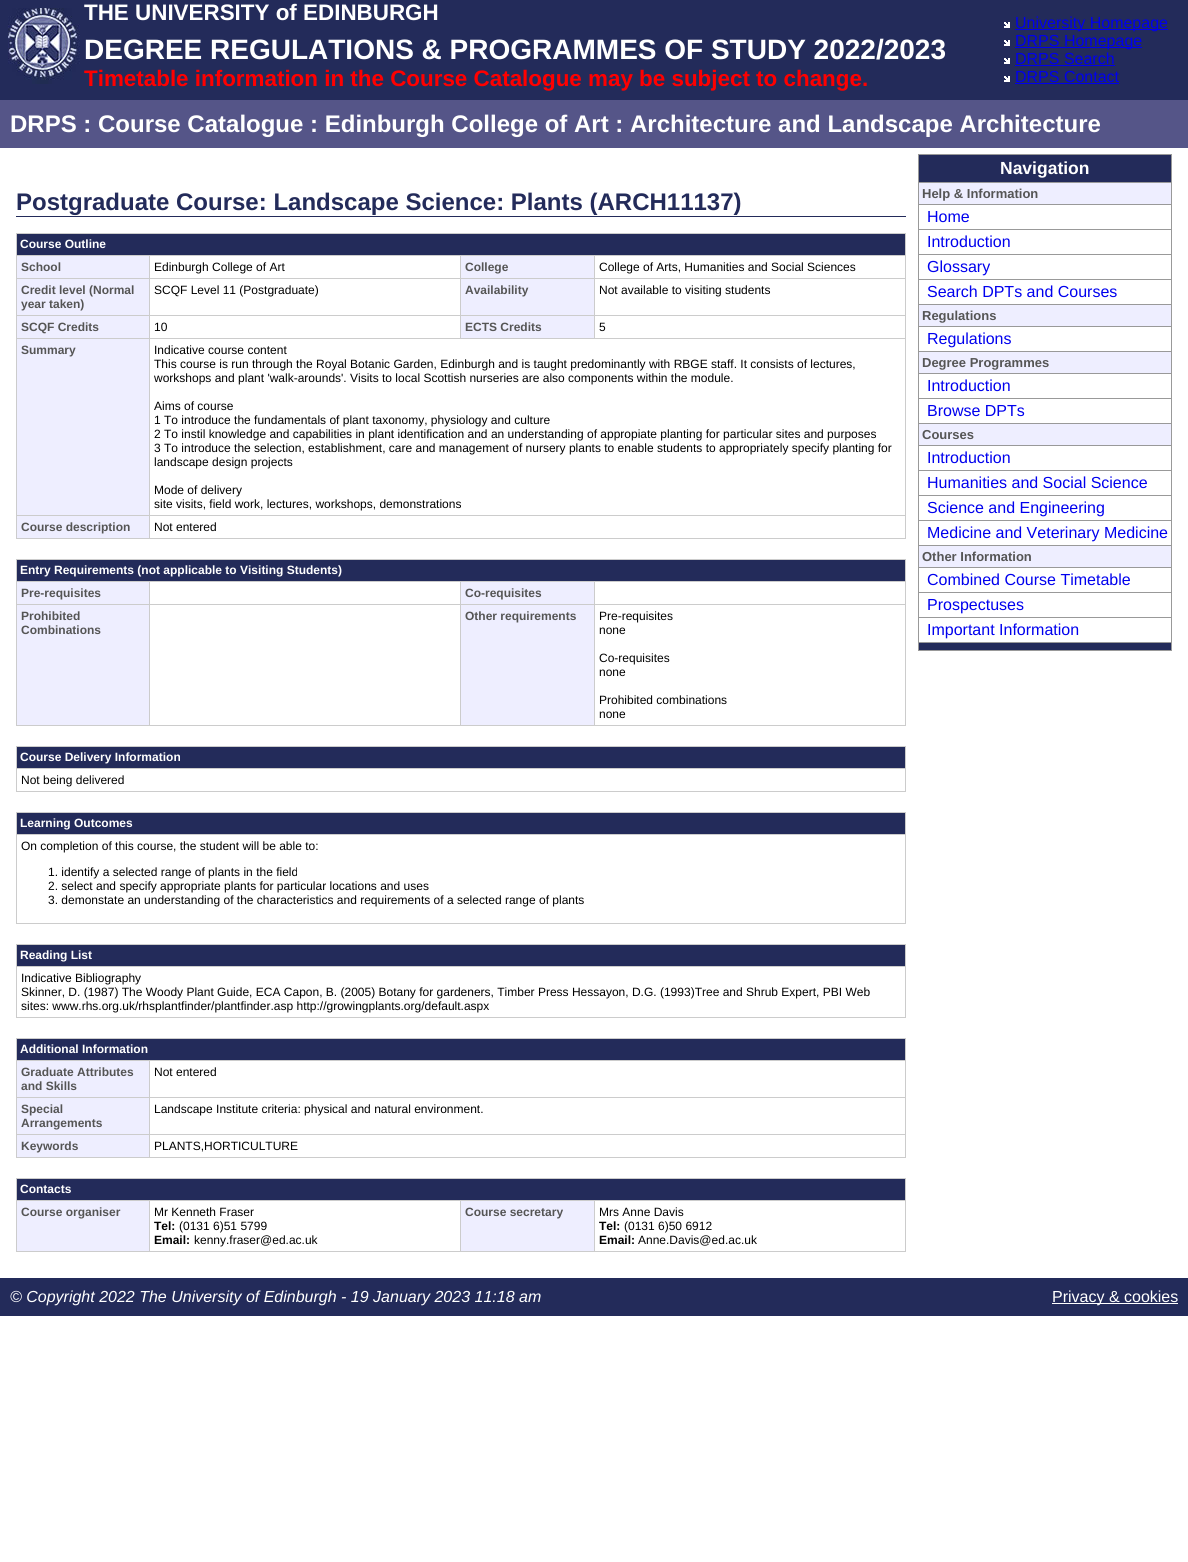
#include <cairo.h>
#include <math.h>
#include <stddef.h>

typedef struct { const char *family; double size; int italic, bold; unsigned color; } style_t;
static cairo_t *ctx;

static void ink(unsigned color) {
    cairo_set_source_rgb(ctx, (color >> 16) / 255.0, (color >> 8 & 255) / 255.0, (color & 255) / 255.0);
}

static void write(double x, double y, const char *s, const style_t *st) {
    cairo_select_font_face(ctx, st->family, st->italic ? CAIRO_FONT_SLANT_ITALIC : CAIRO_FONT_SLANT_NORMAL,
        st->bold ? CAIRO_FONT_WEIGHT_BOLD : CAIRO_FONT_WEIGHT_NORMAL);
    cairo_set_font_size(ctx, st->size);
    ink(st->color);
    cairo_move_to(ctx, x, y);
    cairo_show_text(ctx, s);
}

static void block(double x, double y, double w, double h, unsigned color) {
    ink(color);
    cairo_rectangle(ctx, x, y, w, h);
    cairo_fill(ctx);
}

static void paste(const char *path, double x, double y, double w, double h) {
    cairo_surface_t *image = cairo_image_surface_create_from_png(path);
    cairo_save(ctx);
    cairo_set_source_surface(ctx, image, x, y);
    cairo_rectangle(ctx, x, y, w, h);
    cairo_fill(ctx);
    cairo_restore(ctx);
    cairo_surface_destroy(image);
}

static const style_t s1 = {"Liberation Sans", 22.4, 0, 1, 0xffffff};
static const style_t s2 = {"Liberation Sans", 28, 0, 1, 0xffffff};
static const style_t s3 = {"Liberation Sans", 22.4, 0, 1, 0xff0000};
static const style_t s4 = {"Liberation Sans", 16, 0, 0, 0x0000ee};
static const style_t s5 = {"Liberation Sans", 24, 0, 1, 0xffffff};
static const style_t s6 = {"Liberation Sans", 24, 0, 1, 0x232b5a};
static const style_t s7 = {"Liberation Sans", 12, 0, 1, 0xffffff};
static const style_t s8 = {"Liberation Sans", 12, 0, 1, 0x555555};
static const style_t s9 = {"Liberation Sans", 12, 0, 0, 0x000000};
static const style_t s10 = {"Liberation Sans", 12, 0, 1, 0x000000};
static const style_t s11 = {"Liberation Sans", 17.5, 0, 1, 0xffffff};
static const style_t s12 = {"Liberation Sans", 13, 0, 1, 0x555555};
static const style_t s13 = {"Liberation Sans", 16, 1, 0, 0xffffff};
static const style_t s14 = {"Liberation Sans", 16, 0, 0, 0xffffff};

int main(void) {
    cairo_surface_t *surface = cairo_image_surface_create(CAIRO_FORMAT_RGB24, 1188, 1562);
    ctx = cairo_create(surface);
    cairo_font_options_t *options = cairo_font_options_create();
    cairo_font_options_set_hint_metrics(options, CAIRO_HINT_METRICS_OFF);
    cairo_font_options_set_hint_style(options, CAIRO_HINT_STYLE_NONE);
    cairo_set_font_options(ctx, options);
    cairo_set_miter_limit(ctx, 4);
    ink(0xffffff);
    cairo_paint(ctx);
    block(0, 0, 1188, 100, 0x232b5a);
    paste("pic1.png", 8, 8, 72, 76);
    write(84, 20, "THE UNIVERSITY of EDINBURGH", &s1);
    write(84, 59, "DEGREE REGULATIONS & PROGRAMMES OF STUDY 2022/2023", &s2);
    write(84, 86, "Timetable information in the Course Catalogue may be subject to change.", &s3);
    paste("pic2.png", 1004, 22, 6, 6);
    block(1015, 29, 153, 1, 0x0000ee);
    write(1015, 28, "University Homepage", &s4);
    paste("pic2.png", 1004, 40, 6, 6);
    block(1015, 47, 127, 1, 0x0000ee);
    write(1015, 46, "DRPS Homepage", &s4);
    paste("pic2.png", 1004, 58, 6, 6);
    write(1015, 64, "DRPS Search", &s4);
    block(1015, 65, 100, 1, 0x0000ee);
    paste("pic2.png", 1004, 76, 6, 6);
    write(1015, 82, "DRPS Contact", &s4);
    block(1015, 83, 104, 1, 0x0000ee);
    block(0, 100, 1188, 48, 0x555588);
    write(10, 132, "DRPS : Course Catalogue : Edinburgh College of Art : Architecture and Landscape Architecture", &s5);
    block(16, 216, 890, 1, 0x232b5a);
    write(16, 210, "Postgraduate Course: Landscape Science: Plants (ARCH11137)", &s6);
    block(16, 233, 890, 1, 0xcccccc);
    block(905, 233, 1, 306, 0xcccccc);
    block(16, 538, 890, 1, 0xcccccc);
    block(16, 233, 1, 306, 0xcccccc);
    block(17, 234, 888, 21, 0x232b5a);
    write(20, 248, "Course Outline", &s7);
    block(17, 256, 132, 22, 0xeeeeff);
    block(594, 255, 312, 1, 0xcccccc);
    block(594, 278, 312, 1, 0xcccccc);
    block(594, 315, 312, 1, 0xcccccc);
    block(149, 338, 757, 1, 0xcccccc);
    block(594, 315, 1, 24, 0xcccccc);
    block(460, 315, 135, 1, 0xcccccc);
    block(594, 278, 1, 38, 0xcccccc);
    block(460, 278, 135, 1, 0xcccccc);
    block(594, 255, 1, 24, 0xcccccc);
    block(460, 255, 135, 1, 0xcccccc);
    block(460, 315, 1, 24, 0xcccccc);
    block(149, 315, 312, 1, 0xcccccc);
    block(460, 278, 1, 38, 0xcccccc);
    block(149, 278, 312, 1, 0xcccccc);
    block(460, 255, 1, 24, 0xcccccc);
    block(149, 255, 312, 1, 0xcccccc);
    block(149, 515, 757, 1, 0xcccccc);
    block(149, 515, 1, 24, 0xcccccc);
    block(16, 515, 134, 1, 0xcccccc);
    block(149, 338, 1, 178, 0xcccccc);
    block(16, 338, 134, 1, 0xcccccc);
    block(149, 315, 1, 24, 0xcccccc);
    block(16, 315, 134, 1, 0xcccccc);
    block(149, 278, 1, 38, 0xcccccc);
    block(16, 278, 134, 1, 0xcccccc);
    block(149, 255, 1, 24, 0xcccccc);
    block(16, 255, 134, 1, 0xcccccc);
    write(21, 271, "School", &s8);
    write(154, 271, "Edinburgh College of Art", &s9);
    block(461, 256, 133, 22, 0xeeeeff);
    write(465, 271, "College", &s8);
    write(599, 271, "College of Arts, Humanities and Social Sciences", &s9);
    block(17, 279, 132, 36, 0xeeeeff);
    write(21, 294, "Credit level (Normal", &s8);
    write(21, 308, "year taken)", &s8);
    write(154, 294, "SCQF Level 11 (Postgraduate)", &s9);
    block(461, 279, 133, 36, 0xeeeeff);
    write(465, 294, "Availability", &s8);
    write(599, 294, "Not available to visiting students", &s9);
    block(17, 316, 132, 22, 0xeeeeff);
    write(21, 331, "SCQF Credits", &s8);
    write(154, 331, "10", &s9);
    block(461, 316, 133, 22, 0xeeeeff);
    write(465, 331, "ECTS Credits", &s8);
    write(599, 331, "5", &s9);
    block(17, 339, 132, 176, 0xeeeeff);
    write(21, 354, "Summary", &s8);
    write(154, 354, "Indicative course content", &s9);
    write(154, 368, "This course is run through the Royal Botanic Garden, Edinburgh and is taught predominantly with RBGE staff. It consists of lectures,", &s9);
    write(154, 382, "workshops and plant 'walk-arounds'. Visits to local Scottish nurseries are also components within the module.", &s9);
    write(154, 410, "Aims of course", &s9);
    write(154, 424, "1 To introduce the fundamentals of plant taxonomy, physiology and culture", &s9);
    write(154, 438, "2 To instil knowledge and capabilities in plant identification and an understanding of appropiate planting for particular sites and purposes", &s9);
    write(154, 452, "3 To introduce the selection, establishment, care and management of nursery plants to enable students to appropriately specify planting for", &s9);
    write(154, 466, "landscape design projects", &s9);
    write(154, 494, "Mode of delivery", &s9);
    write(154, 508, "site visits, field work, lectures, workshops, demonstrations", &s9);
    block(17, 516, 132, 22, 0xeeeeff);
    write(21, 531, "Course description", &s8);
    write(154, 531, "Not entered", &s9);
    block(16, 559, 890, 1, 0xcccccc);
    block(905, 559, 1, 167, 0xcccccc);
    block(16, 725, 890, 1, 0xcccccc);
    block(16, 559, 1, 167, 0xcccccc);
    block(17, 560, 888, 21, 0x232b5a);
    write(20, 574, "Entry Requirements (not applicable to Visiting Students)", &s7);
    block(17, 582, 132, 22, 0xeeeeff);
    block(594, 581, 312, 1, 0xcccccc);
    block(594, 604, 312, 1, 0xcccccc);
    block(594, 604, 1, 122, 0xcccccc);
    block(460, 604, 135, 1, 0xcccccc);
    block(594, 581, 1, 24, 0xcccccc);
    block(460, 581, 135, 1, 0xcccccc);
    block(460, 604, 1, 122, 0xcccccc);
    block(149, 604, 312, 1, 0xcccccc);
    block(460, 581, 1, 24, 0xcccccc);
    block(149, 581, 312, 1, 0xcccccc);
    block(149, 604, 1, 122, 0xcccccc);
    block(16, 604, 134, 1, 0xcccccc);
    block(149, 581, 1, 24, 0xcccccc);
    block(16, 581, 134, 1, 0xcccccc);
    write(21, 597, "Pre-requisites", &s8);
    block(461, 582, 133, 22, 0xeeeeff);
    write(465, 597, "Co-requisites", &s8);
    block(17, 605, 132, 120, 0xeeeeff);
    write(21, 620, "Prohibited", &s8);
    write(21, 634, "Combinations", &s8);
    block(461, 605, 133, 120, 0xeeeeff);
    write(465, 620, "Other requirements", &s8);
    write(599, 620, "Pre-requisites", &s9);
    write(599, 634, "none", &s9);
    write(599, 662, "Co-requisites", &s9);
    write(599, 676, "none", &s9);
    write(599, 704, "Prohibited combinations", &s9);
    write(599, 718, "none", &s9);
    block(16, 746, 890, 1, 0xcccccc);
    block(905, 746, 1, 46, 0xcccccc);
    block(16, 791, 890, 1, 0xcccccc);
    block(16, 746, 1, 46, 0xcccccc);
    block(17, 747, 888, 21, 0x232b5a);
    write(20, 761, "Course Delivery Information", &s7);
    block(16, 768, 890, 1, 0xcccccc);
    write(21, 784, "Not being delivered", &s9);
    block(16, 812, 890, 1, 0xcccccc);
    block(905, 812, 1, 112, 0xcccccc);
    block(16, 923, 890, 1, 0xcccccc);
    block(16, 812, 1, 112, 0xcccccc);
    block(17, 813, 888, 21, 0x232b5a);
    write(20, 827, "Learning Outcomes", &s7);
    block(16, 834, 890, 1, 0xcccccc);
    write(21, 850, "On completion of this course, the student will be able to:", &s9);
    write(48, 876, "1. identify a selected range of plants in the field", &s9);
    write(48, 890, "2. select and specify appropriate plants for particular locations and uses", &s9);
    write(48, 904, "3. demonstate an understanding of the characteristics and requirements of a selected range of plants", &s9);
    block(16, 944, 890, 1, 0xcccccc);
    block(905, 944, 1, 74, 0xcccccc);
    block(16, 1017, 890, 1, 0xcccccc);
    block(16, 944, 1, 74, 0xcccccc);
    block(17, 945, 888, 21, 0x232b5a);
    write(20, 959, "Reading List", &s7);
    block(16, 966, 890, 1, 0xcccccc);
    write(21, 982, "Indicative Bibliography", &s9);
    write(21, 996, "Skinner, D. (1987) The Woody Plant Guide, ECA Capon, B. (2005) Botany for gardeners, Timber Press Hessayon, D.G. (1993)Tree and Shrub Expert, PBI Web", &s9);
    write(21, 1010, "sites: www.rhs.org.uk/rhsplantfinder/plantfinder.asp http://growingplants.org/default.aspx", &s9);
    block(16, 1038, 890, 1, 0xcccccc);
    block(905, 1038, 1, 120, 0xcccccc);
    block(16, 1157, 890, 1, 0xcccccc);
    block(16, 1038, 1, 120, 0xcccccc);
    block(17, 1039, 888, 21, 0x232b5a);
    write(20, 1053, "Additional Information", &s7);
    block(17, 1061, 132, 36, 0xeeeeff);
    block(149, 1060, 757, 1, 0xcccccc);
    block(149, 1097, 757, 1, 0xcccccc);
    block(149, 1134, 757, 1, 0xcccccc);
    block(149, 1134, 1, 24, 0xcccccc);
    block(16, 1134, 134, 1, 0xcccccc);
    block(149, 1097, 1, 38, 0xcccccc);
    block(16, 1097, 134, 1, 0xcccccc);
    block(149, 1060, 1, 38, 0xcccccc);
    block(16, 1060, 134, 1, 0xcccccc);
    write(21, 1076, "Graduate Attributes", &s8);
    write(21, 1090, "and Skills", &s8);
    write(154, 1076, "Not entered", &s9);
    block(17, 1098, 132, 36, 0xeeeeff);
    write(21, 1113, "Special", &s8);
    write(21, 1127, "Arrangements", &s8);
    write(154, 1113, "Landscape Institute criteria: physical and natural environment.", &s9);
    block(17, 1135, 132, 22, 0xeeeeff);
    write(21, 1150, "Keywords", &s8);
    write(154, 1150, "PLANTS,HORTICULTURE", &s9);
    block(16, 1178, 890, 1, 0xcccccc);
    block(905, 1178, 1, 74, 0xcccccc);
    block(16, 1251, 890, 1, 0xcccccc);
    block(16, 1178, 1, 74, 0xcccccc);
    block(17, 1179, 888, 21, 0x232b5a);
    write(20, 1193, "Contacts", &s7);
    block(17, 1201, 132, 50, 0xeeeeff);
    block(594, 1200, 312, 1, 0xcccccc);
    block(594, 1200, 1, 52, 0xcccccc);
    block(460, 1200, 135, 1, 0xcccccc);
    block(460, 1200, 1, 52, 0xcccccc);
    block(149, 1200, 312, 1, 0xcccccc);
    block(149, 1200, 1, 52, 0xcccccc);
    block(16, 1200, 134, 1, 0xcccccc);
    write(21, 1216, "Course organiser", &s8);
    write(154, 1216, "Mr Kenneth Fraser", &s9);
    write(154, 1230, "Tel:", &s10);
    write(179, 1230, "(0131 6)51 5799", &s9);
    write(154, 1244, "Email:", &s10);
    write(194, 1244, "kenny.fraser@ed.ac.uk", &s9);
    block(461, 1201, 133, 50, 0xeeeeff);
    write(465, 1216, "Course secretary", &s8);
    write(599, 1216, "Mrs Anne Davis", &s9);
    write(599, 1230, "Tel:", &s10);
    write(624, 1230, "(0131 6)50 6912", &s9);
    write(599, 1244, "Email:", &s10);
    write(638, 1244, "Anne.Davis@ed.ac.uk", &s9);
    block(918, 154, 254, 497, 0x999999);
    block(919, 155, 252, 27, 0x232b5a);
    write(1000, 174, "Navigation", &s11);
    block(919, 183, 252, 21, 0xeeeeff);
    write(922, 198, "Help & Information", &s12);
    block(919, 205, 252, 24, 0xffffff);
    write(927, 222, "Home", &s4);
    block(919, 230, 252, 24, 0xffffff);
    write(927, 247, "Introduction", &s4);
    block(919, 255, 252, 24, 0xffffff);
    write(927, 272, "Glossary", &s4);
    block(919, 280, 252, 24, 0xffffff);
    write(927, 297, "Search DPTs and Courses", &s4);
    block(919, 305, 252, 21, 0xeeeeff);
    write(922, 320, "Regulations", &s12);
    block(919, 327, 252, 24, 0xffffff);
    write(927, 344, "Regulations", &s4);
    block(919, 352, 252, 21, 0xeeeeff);
    write(922, 367, "Degree Programmes", &s12);
    block(919, 374, 252, 24, 0xffffff);
    write(927, 391, "Introduction", &s4);
    block(919, 399, 252, 24, 0xffffff);
    write(927, 416, "Browse DPTs", &s4);
    block(919, 424, 252, 21, 0xeeeeff);
    write(922, 439, "Courses", &s12);
    block(919, 446, 252, 24, 0xffffff);
    write(927, 463, "Introduction", &s4);
    block(919, 471, 252, 24, 0xffffff);
    write(927, 488, "Humanities and Social Science", &s4);
    block(919, 496, 252, 24, 0xffffff);
    write(927, 513, "Science and Engineering", &s4);
    block(919, 521, 252, 24, 0xffffff);
    write(927, 538, "Medicine and Veterinary Medicine", &s4);
    block(919, 546, 252, 21, 0xeeeeff);
    write(922, 561, "Other Information", &s12);
    block(919, 568, 252, 24, 0xffffff);
    write(927, 585, "Combined Course Timetable", &s4);
    block(919, 593, 252, 24, 0xffffff);
    write(927, 610, "Prospectuses", &s4);
    block(919, 618, 252, 24, 0xffffff);
    write(927, 635, "Important Information", &s4);
    block(919, 643, 252, 7, 0x232b5a);
    block(0, 1278, 1188, 38, 0x232b5a);
    write(10, 1302, "© Copyright 2022 The University of Edinburgh - 19 January 2023 11:18 am", &s13);
    block(1052, 1303, 126, 1, 0xffffff);
    write(1052, 1302, "Privacy & cookies", &s14);
    cairo_surface_write_to_png(surface, "screenshot.png");
    cairo_font_options_destroy(options);
    cairo_destroy(ctx);
    cairo_surface_destroy(surface);
    return 0;
}
